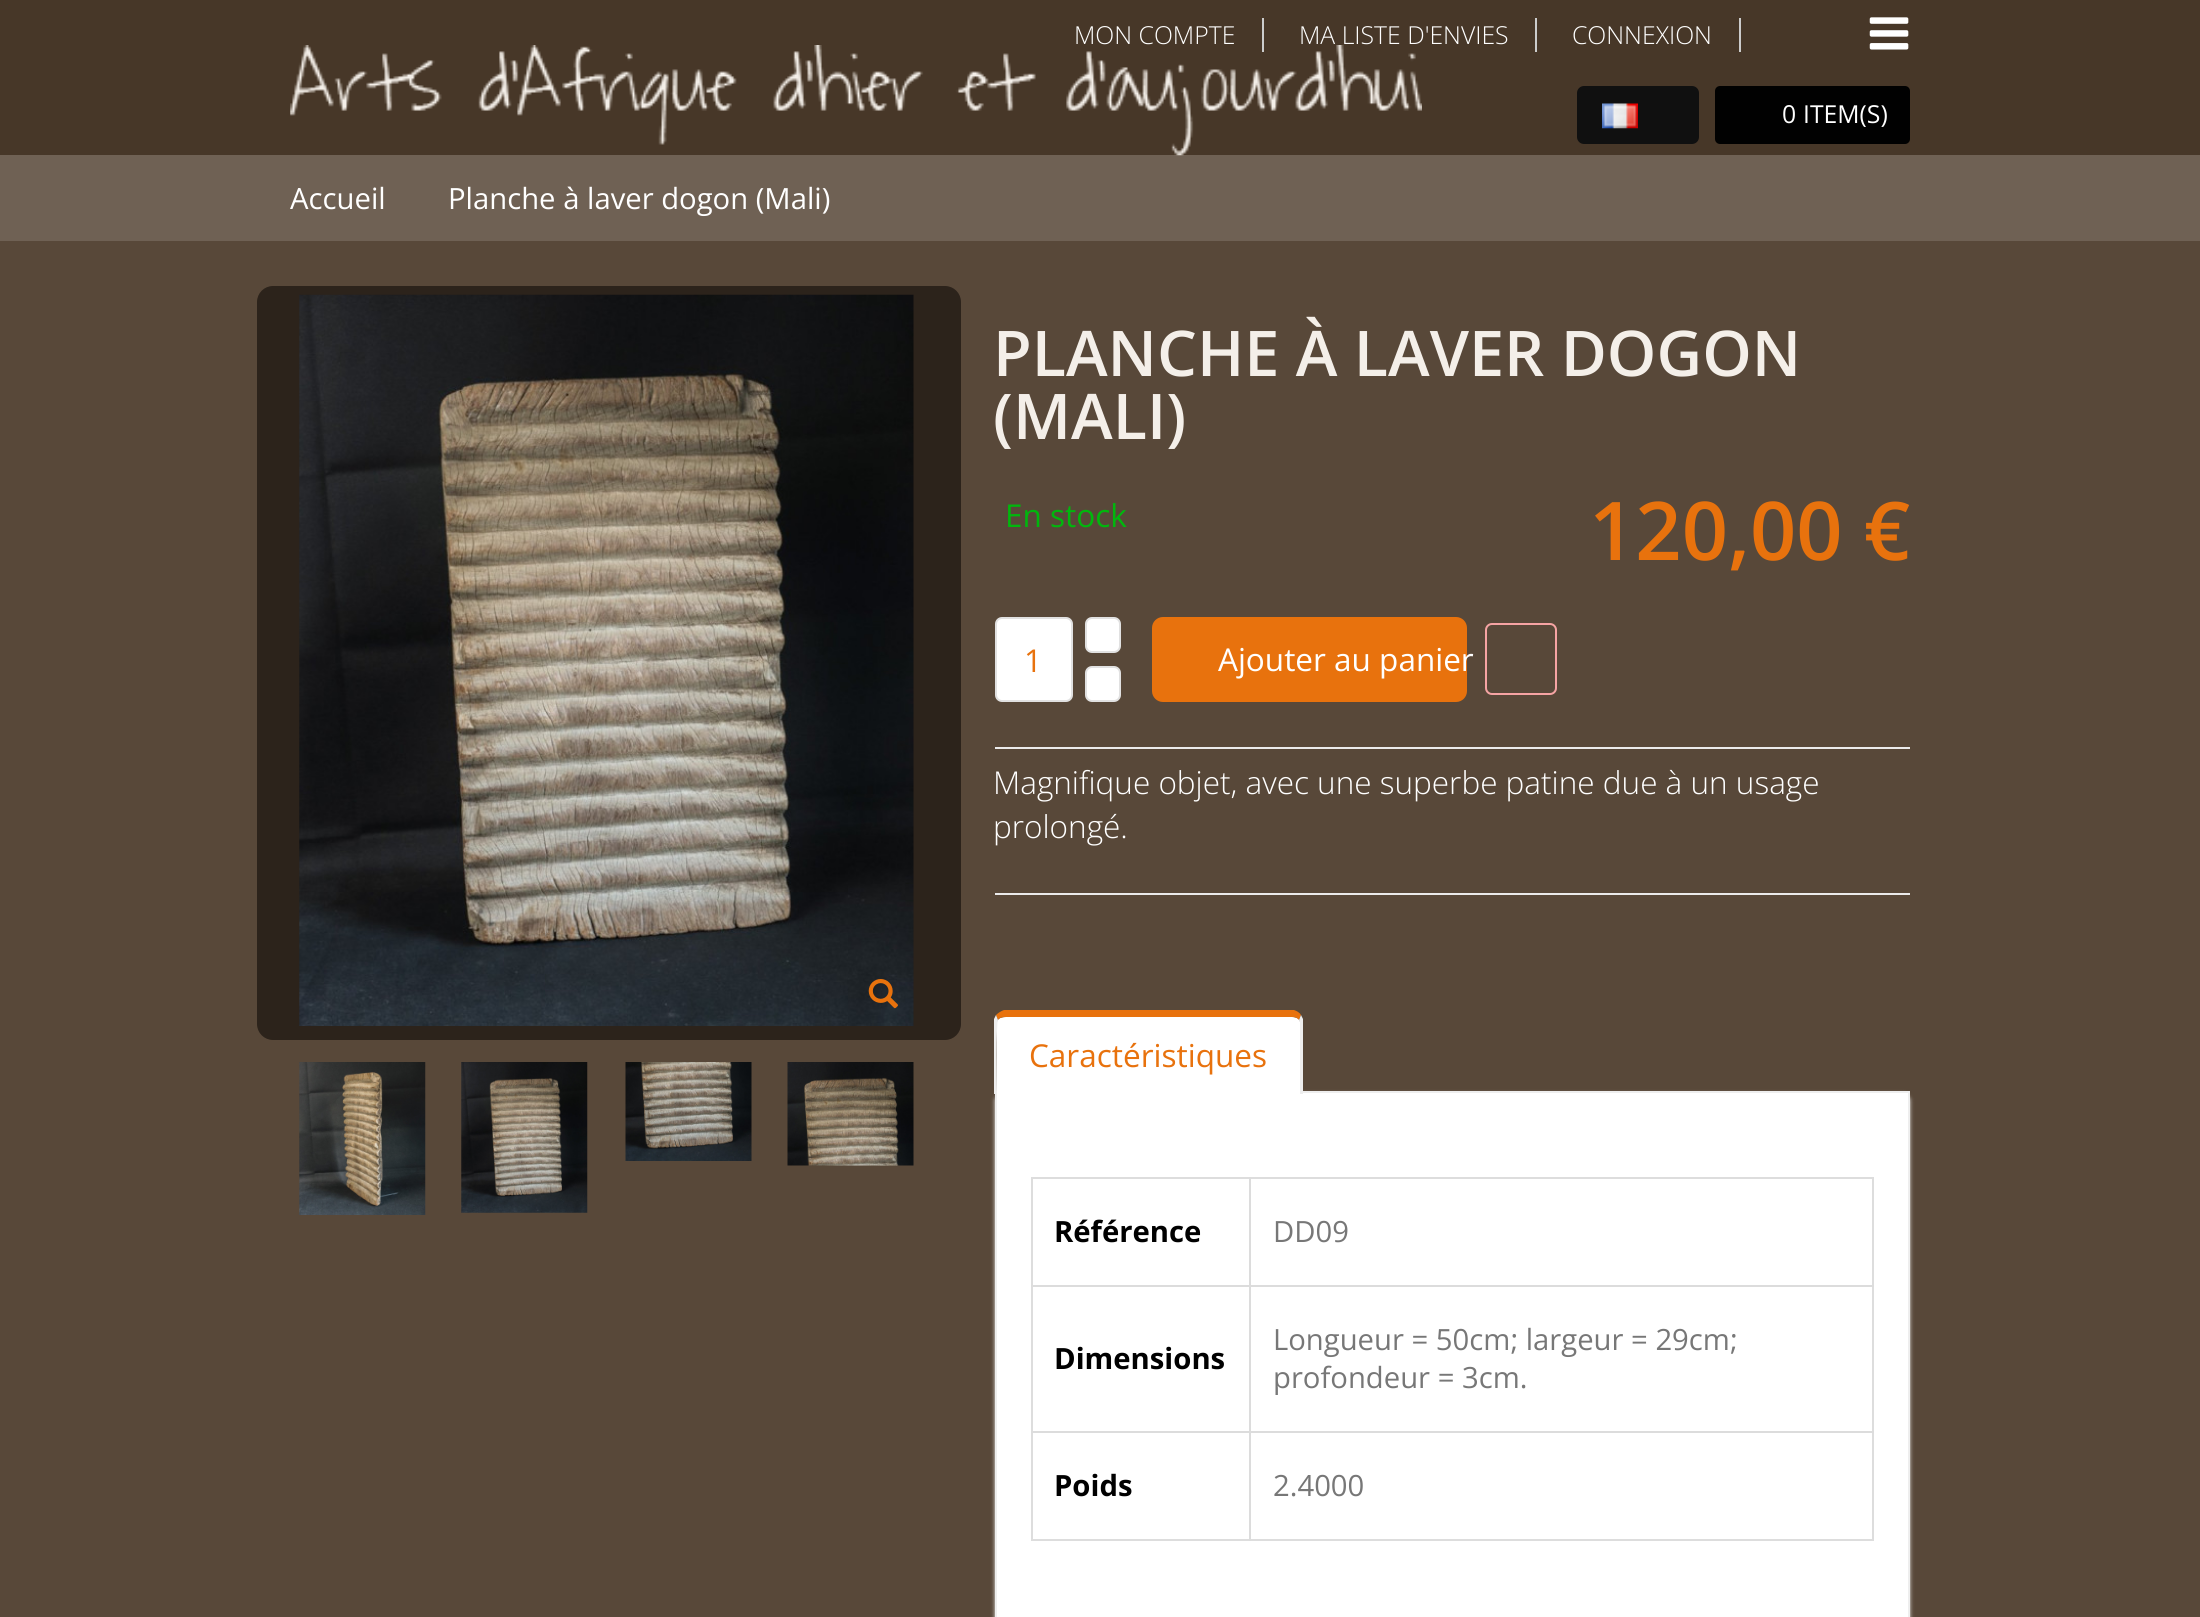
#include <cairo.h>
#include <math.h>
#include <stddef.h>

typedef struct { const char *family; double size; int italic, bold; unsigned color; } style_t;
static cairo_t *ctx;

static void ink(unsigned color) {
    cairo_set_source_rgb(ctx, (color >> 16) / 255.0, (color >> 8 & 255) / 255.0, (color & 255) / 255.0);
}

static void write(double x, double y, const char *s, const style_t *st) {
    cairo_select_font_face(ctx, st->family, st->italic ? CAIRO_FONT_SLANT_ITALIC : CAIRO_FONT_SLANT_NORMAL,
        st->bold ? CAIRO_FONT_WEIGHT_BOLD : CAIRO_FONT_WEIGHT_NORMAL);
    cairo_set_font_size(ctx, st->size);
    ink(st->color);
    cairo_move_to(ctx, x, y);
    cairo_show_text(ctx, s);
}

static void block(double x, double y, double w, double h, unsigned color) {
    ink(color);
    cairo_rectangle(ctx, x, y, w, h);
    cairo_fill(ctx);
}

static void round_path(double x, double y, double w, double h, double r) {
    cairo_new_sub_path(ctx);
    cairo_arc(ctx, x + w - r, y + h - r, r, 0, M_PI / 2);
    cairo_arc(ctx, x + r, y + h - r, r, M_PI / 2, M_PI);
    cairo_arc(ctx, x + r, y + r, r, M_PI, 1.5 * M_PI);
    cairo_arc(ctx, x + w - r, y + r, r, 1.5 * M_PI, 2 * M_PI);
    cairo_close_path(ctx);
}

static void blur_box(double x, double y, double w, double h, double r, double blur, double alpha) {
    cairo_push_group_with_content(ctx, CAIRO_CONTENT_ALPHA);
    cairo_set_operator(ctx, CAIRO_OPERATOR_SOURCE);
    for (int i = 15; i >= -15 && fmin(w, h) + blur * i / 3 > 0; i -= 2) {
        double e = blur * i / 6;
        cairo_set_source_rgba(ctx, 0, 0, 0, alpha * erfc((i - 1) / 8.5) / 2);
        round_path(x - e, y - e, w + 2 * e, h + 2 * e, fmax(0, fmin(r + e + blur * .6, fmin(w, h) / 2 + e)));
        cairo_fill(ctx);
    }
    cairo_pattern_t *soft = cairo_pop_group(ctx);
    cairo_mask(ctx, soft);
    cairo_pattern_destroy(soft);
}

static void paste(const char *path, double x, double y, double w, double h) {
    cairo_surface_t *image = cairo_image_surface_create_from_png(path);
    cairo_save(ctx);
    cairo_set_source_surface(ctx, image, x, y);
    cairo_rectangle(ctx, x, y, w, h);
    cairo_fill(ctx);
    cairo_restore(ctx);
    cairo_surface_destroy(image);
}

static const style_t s1 = {"Open Sans Light", 24.75, 0, 0, 0xffffff};
static const style_t s2 = {"Open Sans", 24.75, 0, 0, 0xffffff};
static const style_t s3 = {"Open Sans", 29.25, 0, 0, 0xffffff};
static const style_t s4 = {"Open Sans SemiBold", 63, 0, 0, 0xf4efe9};
static const style_t s5 = {"Open Sans", 31.5, 0, 0, 0x00b70d};
static const style_t s6 = {"Open Sans SemiBold", 81, 0, 0, 0xe8720d};
static const style_t s7 = {"Open Sans", 31.5, 0, 0, 0xe8720d};
static const style_t s8 = {"Open Sans", 31.5, 0, 0, 0xffffff};
static const style_t s9 = {"Open Sans Light", 31.5, 0, 0, 0xffffff};
static const style_t s10 = {"Open Sans", 29.25, 0, 1, 0x000000};
static const style_t s11 = {"Open Sans", 29.25, 0, 0, 0x777777};

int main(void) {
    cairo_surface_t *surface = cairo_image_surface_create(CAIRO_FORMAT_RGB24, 2200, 1617);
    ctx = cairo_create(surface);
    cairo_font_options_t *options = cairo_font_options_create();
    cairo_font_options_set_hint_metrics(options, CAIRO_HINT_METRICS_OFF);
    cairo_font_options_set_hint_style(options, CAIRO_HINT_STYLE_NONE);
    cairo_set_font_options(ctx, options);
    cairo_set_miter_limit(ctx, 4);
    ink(0x473728);
    cairo_paint(ctx);
    block(1262, 18, 2, 34, 0xcccccc);
    block(0, 155, 2200, 86, 0x6f6154);
    paste("pic1.png", 290, 45, 1132, 111);
    write(1074, 44, "MON COMPTE", &s1);
    write(1299, 44, "MA LISTE D'ENVIES", &s1);
    block(1535, 18, 2, 34, 0xcccccc);
    write(1572, 44, "CONNEXION", &s1);
    block(1739, 18, 2, 34, 0xcccccc);
    paste("pic2.png", 1869, 17, 40, 33);
    ink(0x101010);
    round_path(1578, 87, 120, 56, 6);
    cairo_fill_preserve(ctx);
    cairo_stroke(ctx);
    paste("pic3.png", 1602, 103, 36, 26);
    ink(0x010101);
    round_path(1715, 86, 195, 58, 5);
    cairo_fill(ctx);
    write(1782, 123, "0", &s2);
    write(1803, 123, "ITEM(S)", &s2);
    write(290, 209, "Accueil", &s3);
    write(448, 209, "Planche à laver dogon (Mali)", &s3);
    block(0, 241, 2200, 1376, 0x584839);
    ink(0x2c231b);
    round_path(258, 287, 702, 752, 15);
    cairo_fill_preserve(ctx);
    cairo_stroke(ctx);
    paste("pic4.png", 299, 294, 615, 732);
    paste("pic5.png", 868, 979, 30, 30);
    paste("pic6.png", 299, 1062, 127, 153);
    paste("pic7.png", 461, 1062, 127, 151);
    paste("pic8.png", 625, 1062, 127, 99);
    paste("pic9.png", 787, 1062, 127, 104);
    write(993, 376, "PLANCHE À LAVER DOGON", &s4);
    write(993, 439, "(MALI)", &s4);
    write(1005, 527, "En stock", &s5);
    write(1589, 560, "120,00 €", &s6);
    block(995, 747, 915, 2, 0xebebeb);
    ink(0xffffff);
    round_path(996, 618, 76, 83, 6);
    cairo_fill_preserve(ctx);
    ink(0xe1e1e1);
    cairo_stroke(ctx);
    write(1024, 672, "1", &s7);
    ink(0xffffff);
    round_path(1086, 618, 34, 34, 6);
    cairo_fill_preserve(ctx);
    ink(0xe1e1e1);
    cairo_stroke(ctx);
    ink(0xffffff);
    round_path(1086, 667, 34, 34, 6);
    cairo_fill_preserve(ctx);
    ink(0xe1e1e1);
    cairo_stroke(ctx);
    ink(0xe8720d);
    round_path(1152, 617, 315, 85, 11);
    cairo_fill(ctx);
    write(1218, 671, "Ajouter au panier", &s8);
    round_path(1486, 624, 70, 70, 6);
    ink(0xf6a4a4);
    cairo_stroke(ctx);
    block(995, 893, 915, 2, 0xebebeb);
    write(993, 794, "Magnifique objet, avec une superbe patine due à un usage", &s9);
    write(993, 838, "prolongé.", &s9);
    ink(0xeeeeee);
    blur_box(995, 1094, 915, 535, 7, 2, 1);
    ink(0xffffff);
    cairo_rectangle(ctx, 996, 1092, 913, 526);
    cairo_fill_preserve(ctx);
    ink(0xeeeeee);
    cairo_stroke(ctx);
    ink(0xffffff);
    cairo_new_path(ctx);
    cairo_move_to(ctx, 1006, 1017);
    cairo_line_to(ctx, 1292, 1017);
    cairo_curve_to(ctx, 1296, 1017, 1300, 1019, 1300, 1022);
    cairo_line_to(ctx, 1300, 1094);
    cairo_line_to(ctx, 997, 1094);
    cairo_line_to(ctx, 997, 1022);
    cairo_curve_to(ctx, 997, 1019, 1001, 1017, 1006, 1017);
    cairo_close_path(ctx);
    cairo_fill(ctx);
    ink(0xe8720d);
    cairo_new_path(ctx);
    cairo_move_to(ctx, 1006, 1017);
    cairo_curve_to(ctx, 1002, 1017, 999, 1018, 998, 1020);
    cairo_line_to(ctx, 996, 1015);
    cairo_curve_to(ctx, 998, 1013, 1001, 1011, 1004, 1010);
    cairo_line_to(ctx, 1294, 1010);
    cairo_curve_to(ctx, 1297, 1011, 1300, 1013, 1301, 1015);
    cairo_line_to(ctx, 1299, 1020);
    cairo_curve_to(ctx, 1298, 1018, 1295, 1017, 1292, 1017);
    cairo_close_path(ctx);
    cairo_fill(ctx);
    ink(0xeeeeee);
    cairo_new_path(ctx);
    cairo_move_to(ctx, 1300, 1094);
    cairo_line_to(ctx, 1300, 1022);
    cairo_line_to(ctx, 1299, 1020);
    cairo_line_to(ctx, 1301, 1015);
    cairo_line_to(ctx, 1303, 1019);
    cairo_line_to(ctx, 1303, 1094);
    cairo_close_path(ctx);
    cairo_fill(ctx);
    cairo_new_path(ctx);
    cairo_move_to(ctx, 994, 1094);
    cairo_line_to(ctx, 994, 1019);
    cairo_line_to(ctx, 996, 1015);
    cairo_line_to(ctx, 998, 1020);
    cairo_curve_to(ctx, 996, 1022, 997, 1085, 997, 1094);
    cairo_close_path(ctx);
    cairo_fill(ctx);
    write(1029, 1067, "Caractéristiques", &s7);
    block(1031, 1177, 843, 2, 0xdddddd);
    block(1872, 1177, 2, 364, 0xdddddd);
    block(1031, 1539, 843, 2, 0xdddddd);
    block(1031, 1177, 2, 364, 0xdddddd);
    block(1249, 1431, 2, 110, 0xdcdcdc);
    block(1249, 1431, 625, 2, 0xdcdcdc);
    block(1249, 1285, 2, 148, 0xdcdcdc);
    block(1249, 1285, 625, 2, 0xdcdcdc);
    block(1249, 1177, 2, 110, 0xdcdcdc);
    block(1031, 1285, 220, 2, 0xdcdcdc);
    write(1054, 1242, "Référence", &s10);
    write(1273, 1242, "DD09", &s11);
    block(1031, 1431, 220, 2, 0xdcdcdc);
    write(1054, 1369, "Dimensions", &s10);
    write(1273, 1350, "Longueur = 50cm; largeur = 29cm;", &s11);
    write(1273, 1388, "profondeur = 3cm.", &s11);
    write(1054, 1496, "Poids", &s10);
    write(1273, 1496, "2.4000", &s11);
    cairo_surface_write_to_png(surface, "screenshot.png");
    cairo_font_options_destroy(options);
    cairo_destroy(ctx);
    cairo_surface_destroy(surface);
    return 0;
}
